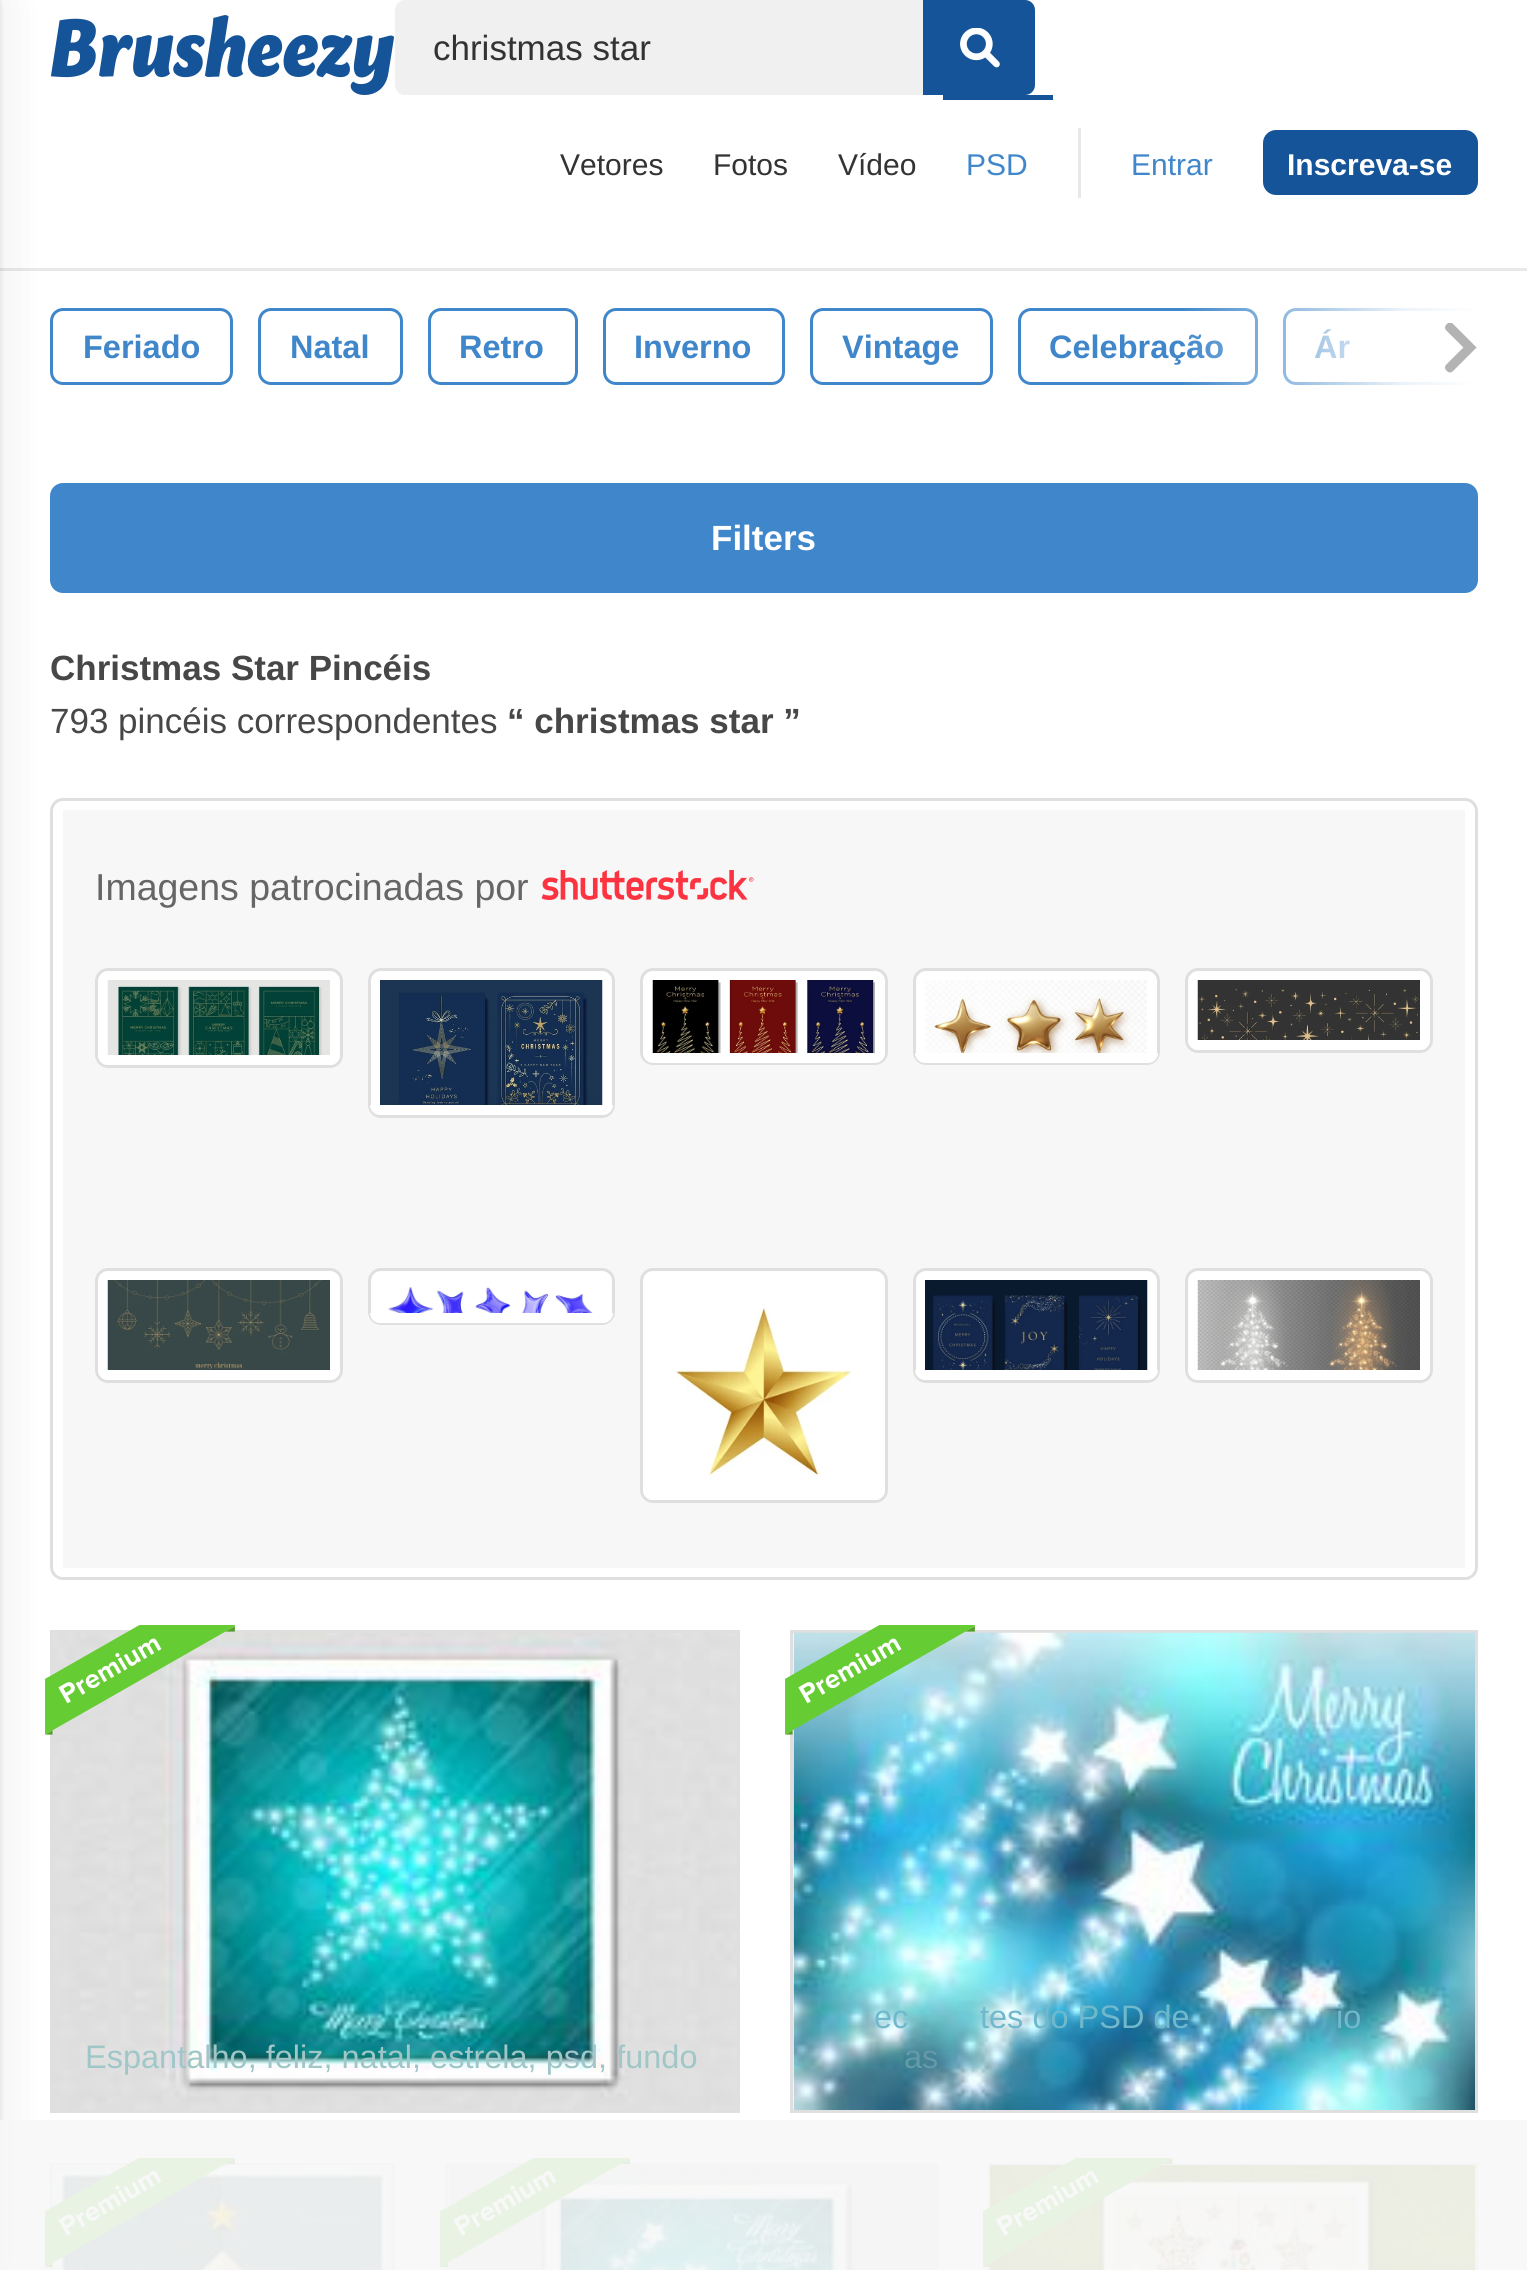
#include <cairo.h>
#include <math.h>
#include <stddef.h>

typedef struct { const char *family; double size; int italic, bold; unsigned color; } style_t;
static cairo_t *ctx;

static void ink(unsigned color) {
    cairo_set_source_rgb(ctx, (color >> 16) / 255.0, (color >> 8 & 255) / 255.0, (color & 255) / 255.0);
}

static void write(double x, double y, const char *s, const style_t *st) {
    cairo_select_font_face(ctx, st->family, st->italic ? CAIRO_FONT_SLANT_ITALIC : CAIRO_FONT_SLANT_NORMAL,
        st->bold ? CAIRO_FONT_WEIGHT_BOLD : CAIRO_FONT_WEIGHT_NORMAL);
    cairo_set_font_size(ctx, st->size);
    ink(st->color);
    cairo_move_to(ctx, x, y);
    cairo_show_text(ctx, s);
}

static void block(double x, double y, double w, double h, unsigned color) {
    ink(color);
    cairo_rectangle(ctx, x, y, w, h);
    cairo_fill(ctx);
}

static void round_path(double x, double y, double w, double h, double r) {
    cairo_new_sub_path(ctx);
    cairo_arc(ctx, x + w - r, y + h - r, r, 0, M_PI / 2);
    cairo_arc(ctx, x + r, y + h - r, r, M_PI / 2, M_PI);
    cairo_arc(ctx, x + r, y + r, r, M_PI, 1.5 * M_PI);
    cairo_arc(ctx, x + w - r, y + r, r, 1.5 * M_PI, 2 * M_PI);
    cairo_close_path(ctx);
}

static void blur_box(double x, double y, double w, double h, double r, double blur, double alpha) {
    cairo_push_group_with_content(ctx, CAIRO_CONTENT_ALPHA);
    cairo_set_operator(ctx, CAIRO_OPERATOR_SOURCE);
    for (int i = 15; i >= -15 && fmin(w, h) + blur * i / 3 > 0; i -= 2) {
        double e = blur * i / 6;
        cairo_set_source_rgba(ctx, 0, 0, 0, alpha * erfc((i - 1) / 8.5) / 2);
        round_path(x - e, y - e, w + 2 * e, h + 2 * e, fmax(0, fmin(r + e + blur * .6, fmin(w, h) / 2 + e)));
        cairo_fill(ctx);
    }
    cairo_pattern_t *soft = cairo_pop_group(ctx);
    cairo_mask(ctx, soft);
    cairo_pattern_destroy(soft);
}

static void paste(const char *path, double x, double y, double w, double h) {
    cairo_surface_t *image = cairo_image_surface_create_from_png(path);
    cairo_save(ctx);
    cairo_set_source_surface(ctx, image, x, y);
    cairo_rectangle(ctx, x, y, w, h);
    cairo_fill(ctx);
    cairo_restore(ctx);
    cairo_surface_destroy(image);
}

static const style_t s1 = {"Liberation Sans", 35, 0, 0, 0x333333};
static const style_t s2 = {"Liberation Sans", 30, 0, 0, 0x333333};
static const style_t s3 = {"Liberation Sans", 30, 0, 0, 0x3f86ca};
static const style_t s4 = {"Liberation Sans", 30, 0, 1, 0xffffff};
static const style_t s5 = {"Liberation Sans", 32.5, 0, 1, 0x3f86ca};
static const style_t s6 = {"Liberation Sans", 35, 0, 1, 0xffffff};
static const style_t s7 = {"Liberation Sans", 35, 0, 1, 0x474747};
static const style_t s8 = {"Liberation Sans", 35, 0, 0, 0x474747};
static const style_t s9 = {"Liberation Sans", 37.5, 0, 0, 0x666666};
static const style_t s10 = {"Liberation Sans", 32.5, 0, 0, 0xa1c6c7};
static const style_t s11 = {"Liberation Sans", 32.5, 0, 0, 0x70b8cb};
static const style_t s12 = {"Liberation Sans", 32.5, 0, 0, 0x6399a8};

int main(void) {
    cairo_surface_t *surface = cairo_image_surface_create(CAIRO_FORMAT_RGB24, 1527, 2270);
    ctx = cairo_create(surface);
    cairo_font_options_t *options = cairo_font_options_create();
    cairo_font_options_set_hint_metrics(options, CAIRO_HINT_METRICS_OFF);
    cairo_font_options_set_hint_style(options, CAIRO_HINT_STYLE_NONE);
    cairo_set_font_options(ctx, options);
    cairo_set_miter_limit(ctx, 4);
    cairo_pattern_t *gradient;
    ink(0xffffff);
    cairo_paint(ctx);
    block(0, 268, 1527, 3, 0xe8e8e8);
    paste("pic1.png", 50, 15, 345, 80);
    ink(0xf0f0f0);
    round_path(395, 0, 640, 95, 10);
    cairo_fill(ctx);
    write(433, 60, "christmas star", &s1);
    ink(0x155499);
    cairo_new_path(ctx);
    cairo_move_to(ctx, 923, 0);
    cairo_line_to(ctx, 1025, 0);
    cairo_curve_to(ctx, 1030.5, 0, 1035, 4.5, 1035, 10);
    cairo_line_to(ctx, 1035, 85);
    cairo_curve_to(ctx, 1035, 90.5, 1030.5, 95, 1025, 95);
    cairo_line_to(ctx, 923, 95);
    cairo_close_path(ctx);
    cairo_fill(ctx);
    paste("pic2.png", 960, 28, 40, 40);
    write(560, 175, "Vetores", &s2);
    write(713, 175, "Fotos", &s2);
    write(838, 175, "Vídeo", &s2);
    block(943, 95, 110, 5, 0x155499);
    write(966, 175, "PSD", &s3);
    block(1078, 128, 3, 70, 0xe8e8e8);
    write(1131, 175, "Entrar", &s3);
    ink(0x155499);
    round_path(1263, 130, 215, 65, 13);
    cairo_fill(ctx);
    write(1287, 175, "Inscreva-se", &s4);
    round_path(1019.5, 309.5, 237, 74, 11.5);
    ink(0x3f86ca);
    cairo_set_line_width(ctx, 3);
    cairo_stroke(ctx);
    write(1049, 358, "Celebração", &s5);
    cairo_save(ctx);
    cairo_rectangle(ctx, 50, 308, 1428, 110);
    cairo_clip(ctx);
    round_path(1284.5, 309.5, 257, 74, 11.5);
    cairo_stroke(ctx);
    cairo_restore(ctx);
    write(1314, 358, "Ár", &s5);
    gradient = cairo_pattern_create_linear(1178, 346, 1478, 346);
    cairo_pattern_add_color_stop_rgba(gradient, 0, 1, 1, 1, 0);
    cairo_pattern_add_color_stop_rgba(gradient, 0.75, 1, 1, 1, 0.9);
    cairo_pattern_add_color_stop_rgba(gradient, 1, 1, 1, 1, 1);
    cairo_set_source(ctx, gradient);
    cairo_pattern_destroy(gradient);
    cairo_rectangle(ctx, 1183, 308, 295, 77);
    cairo_fill(ctx);
    paste("pic3.png", 1445, 323, 32, 50);
    round_path(51.5, 309.5, 180, 74, 11.5);
    ink(0x3f86ca);
    cairo_stroke(ctx);
    write(83, 358, "Feriado", &s5);
    round_path(259.5, 309.5, 142, 74, 11.5);
    cairo_stroke(ctx);
    write(290, 358, "Natal", &s5);
    round_path(429.5, 309.5, 147, 74, 11.5);
    cairo_stroke(ctx);
    write(459, 358, "Retro", &s5);
    round_path(604.5, 309.5, 179, 74, 11.5);
    cairo_stroke(ctx);
    write(634, 358, "Inverno", &s5);
    round_path(811.5, 309.5, 180, 74, 11.5);
    cairo_stroke(ctx);
    write(842, 358, "Vintage", &s5);
    round_path(50, 483, 1428, 110, 13);
    cairo_fill(ctx);
    write(711, 550, "Filters", &s6);
    round_path(51.5, 799.5, 1425, 779, 11.5);
    ink(0xdfdfdf);
    cairo_stroke(ctx);
    block(63, 810, 1402, 758, 0xf7f7f7);
    cairo_rectangle(ctx, 51.5, 1631.5, 687, 480);
    ink(0xdfdfdf);
    cairo_stroke(ctx);
    paste("pic16.png", 53, 1633, 684, 477);
    paste("pic15.png", 45, 1625, 190, 110);
    cairo_rectangle(ctx, 51.5, 2164.5, 342, 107);
    cairo_stroke(ctx);
    paste("pic20.png", 52, 2165, 341, 105);
    paste("pic19.png", 45, 2158, 190, 110);
    ink(0x000000);
    blur_box(-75, 0, 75, 2270, 0, 25, 0.08);
    blur_box(-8, 0, 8, 2270, 0, 2.5, 0.1);
    write(50, 680, "Christmas Star Pincéis", &s7);
    write(50, 733, "793 pincéis correspondentes", &s8);
    write(507, 733, "“ christmas star ”", &s7);
    write(95, 900, "Imagens patrocinadas por", &s9);
    paste("pic4.png", 541, 870, 213, 30);
    ink(0xffffff);
    round_path(96.5, 969.5, 245, 97, 11.5);
    cairo_fill_preserve(ctx);
    ink(0xdfdfdf);
    cairo_stroke(ctx);
    paste("pic5.png", 107, 980, 223, 85);
    ink(0xffffff);
    cairo_new_path(ctx);
    cairo_move_to(ctx, 98, 1055);
    cairo_line_to(ctx, 340, 1055);
    cairo_curve_to(ctx, 340, 1060.5, 335.5, 1065, 330, 1065);
    cairo_line_to(ctx, 108, 1065);
    cairo_curve_to(ctx, 102.5, 1065, 98, 1060.5, 98, 1055);
    cairo_close_path(ctx);
    cairo_fill(ctx);
    round_path(369.5, 969.5, 244, 147, 11.5);
    cairo_fill_preserve(ctx);
    ink(0xdfdfdf);
    cairo_stroke(ctx);
    paste("pic6.png", 380, 980, 223, 125);
    ink(0xffffff);
    cairo_new_path(ctx);
    cairo_move_to(ctx, 370, 1105);
    cairo_line_to(ctx, 613, 1105);
    cairo_curve_to(ctx, 613, 1110.5, 608.5, 1115, 603, 1115);
    cairo_line_to(ctx, 380, 1115);
    cairo_curve_to(ctx, 374.5, 1115, 370, 1110.5, 370, 1105);
    cairo_close_path(ctx);
    cairo_fill(ctx);
    round_path(641.5, 969.5, 245, 94, 11.5);
    cairo_fill_preserve(ctx);
    ink(0xdfdfdf);
    cairo_stroke(ctx);
    paste("pic7.png", 652, 980, 223, 83);
    ink(0xffffff);
    cairo_new_path(ctx);
    cairo_move_to(ctx, 643, 1053);
    cairo_line_to(ctx, 885, 1053);
    cairo_curve_to(ctx, 885, 1058.5, 880.5, 1063, 875, 1063);
    cairo_line_to(ctx, 653, 1063);
    cairo_curve_to(ctx, 647.5, 1063, 643, 1058.5, 643, 1053);
    cairo_close_path(ctx);
    cairo_fill(ctx);
    round_path(914.5, 969.5, 244, 94, 11.5);
    cairo_fill_preserve(ctx);
    ink(0xdfdfdf);
    cairo_stroke(ctx);
    paste("pic8.png", 925, 980, 222, 73);
    ink(0xffffff);
    cairo_new_path(ctx);
    cairo_move_to(ctx, 915, 1053);
    cairo_line_to(ctx, 1158, 1053);
    cairo_curve_to(ctx, 1158, 1058.5, 1153.5, 1063, 1148, 1063);
    cairo_line_to(ctx, 925, 1063);
    cairo_curve_to(ctx, 919.5, 1063, 915, 1058.5, 915, 1053);
    cairo_close_path(ctx);
    cairo_fill(ctx);
    round_path(1186.5, 969.5, 245, 82, 11.5);
    cairo_fill_preserve(ctx);
    ink(0xdfdfdf);
    cairo_stroke(ctx);
    paste("pic9.png", 1197, 980, 223, 70);
    ink(0xffffff);
    cairo_new_path(ctx);
    cairo_move_to(ctx, 1188, 1040);
    cairo_line_to(ctx, 1430, 1040);
    cairo_curve_to(ctx, 1430, 1045.5, 1425.5, 1050, 1420, 1050);
    cairo_line_to(ctx, 1198, 1050);
    cairo_curve_to(ctx, 1192.5, 1050, 1188, 1045.5, 1188, 1040);
    cairo_close_path(ctx);
    cairo_fill(ctx);
    round_path(96.5, 1269.5, 245, 112, 11.5);
    cairo_fill_preserve(ctx);
    ink(0xdfdfdf);
    cairo_stroke(ctx);
    paste("pic10.png", 107, 1280, 223, 100);
    ink(0xffffff);
    cairo_new_path(ctx);
    cairo_move_to(ctx, 98, 1370);
    cairo_line_to(ctx, 340, 1370);
    cairo_curve_to(ctx, 340, 1375.5, 335.5, 1380, 330, 1380);
    cairo_line_to(ctx, 108, 1380);
    cairo_curve_to(ctx, 102.5, 1380, 98, 1375.5, 98, 1370);
    cairo_close_path(ctx);
    cairo_fill(ctx);
    round_path(369.5, 1269.5, 244, 54, 11.5);
    cairo_fill_preserve(ctx);
    ink(0xdfdfdf);
    cairo_stroke(ctx);
    paste("pic11.png", 380, 1287, 222, 26);
    ink(0xffffff);
    cairo_new_path(ctx);
    cairo_move_to(ctx, 370, 1313);
    cairo_line_to(ctx, 613, 1313);
    cairo_curve_to(ctx, 613, 1318.5, 608.5, 1323, 603, 1323);
    cairo_line_to(ctx, 380, 1323);
    cairo_curve_to(ctx, 374.5, 1323, 370, 1318.5, 370, 1313);
    cairo_close_path(ctx);
    cairo_fill(ctx);
    round_path(641.5, 1269.5, 245, 232, 11.5);
    cairo_fill_preserve(ctx);
    ink(0xdfdfdf);
    cairo_stroke(ctx);
    paste("pic12.png", 676, 1308, 176, 171);
    ink(0xffffff);
    cairo_new_path(ctx);
    cairo_move_to(ctx, 643, 1490);
    cairo_line_to(ctx, 885, 1490);
    cairo_curve_to(ctx, 885, 1495.5, 880.5, 1500, 875, 1500);
    cairo_line_to(ctx, 653, 1500);
    cairo_curve_to(ctx, 647.5, 1500, 643, 1495.5, 643, 1490);
    cairo_close_path(ctx);
    cairo_fill(ctx);
    round_path(914.5, 1269.5, 244, 112, 11.5);
    cairo_fill_preserve(ctx);
    ink(0xdfdfdf);
    cairo_stroke(ctx);
    paste("pic13.png", 925, 1280, 223, 90);
    ink(0xffffff);
    cairo_new_path(ctx);
    cairo_move_to(ctx, 915, 1370);
    cairo_line_to(ctx, 1158, 1370);
    cairo_curve_to(ctx, 1158, 1375.5, 1153.5, 1380, 1148, 1380);
    cairo_line_to(ctx, 925, 1380);
    cairo_curve_to(ctx, 919.5, 1380, 915, 1375.5, 915, 1370);
    cairo_close_path(ctx);
    cairo_fill(ctx);
    round_path(1186.5, 1269.5, 245, 112, 11.5);
    cairo_fill_preserve(ctx);
    ink(0xdfdfdf);
    cairo_stroke(ctx);
    paste("pic14.png", 1197, 1280, 223, 100);
    ink(0xffffff);
    cairo_new_path(ctx);
    cairo_move_to(ctx, 1188, 1370);
    cairo_line_to(ctx, 1430, 1370);
    cairo_curve_to(ctx, 1430, 1375.5, 1425.5, 1380, 1420, 1380);
    cairo_line_to(ctx, 1198, 1380);
    cairo_curve_to(ctx, 1192.5, 1380, 1188, 1375.5, 1188, 1370);
    cairo_close_path(ctx);
    cairo_fill(ctx);
    write(85, 2068, "Espantalho, feliz, natal, estrela, psd, fundo", &s10);
    cairo_rectangle(ctx, 791.5, 1631.5, 685, 480);
    ink(0xdfdfdf);
    cairo_stroke(ctx);
    paste("pic18.png", 793, 1632, 682, 478);
    paste("pic17.png", 785, 1625, 190, 110);
    write(874, 2028, "ec", &s11);
    write(980, 2028, "tes do PSD de", &s11);
    write(1336, 2028, "io", &s11);
    write(904, 2068, "as", &s12);
    cairo_rectangle(ctx, 446.5, 2164.5, 490, 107);
    ink(0xdfdfdf);
    cairo_stroke(ctx);
    paste("pic22.png", 448, 2165, 487, 105);
    paste("pic21.png", 440, 2158, 190, 110);
    cairo_rectangle(ctx, 989.5, 2164.5, 487, 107);
    cairo_stroke(ctx);
    paste("pic24.png", 990, 2165, 485, 105);
    paste("pic23.png", 983, 2158, 190, 110);
    cairo_set_source_rgba(ctx, 0.969, 0.969, 0.969, 0.9);
    cairo_rectangle(ctx, 0, 2120, 1527, 150);
    cairo_fill(ctx);
    cairo_surface_write_to_png(surface, "screenshot.png");
    cairo_font_options_destroy(options);
    cairo_destroy(ctx);
    cairo_surface_destroy(surface);
    return 0;
}
